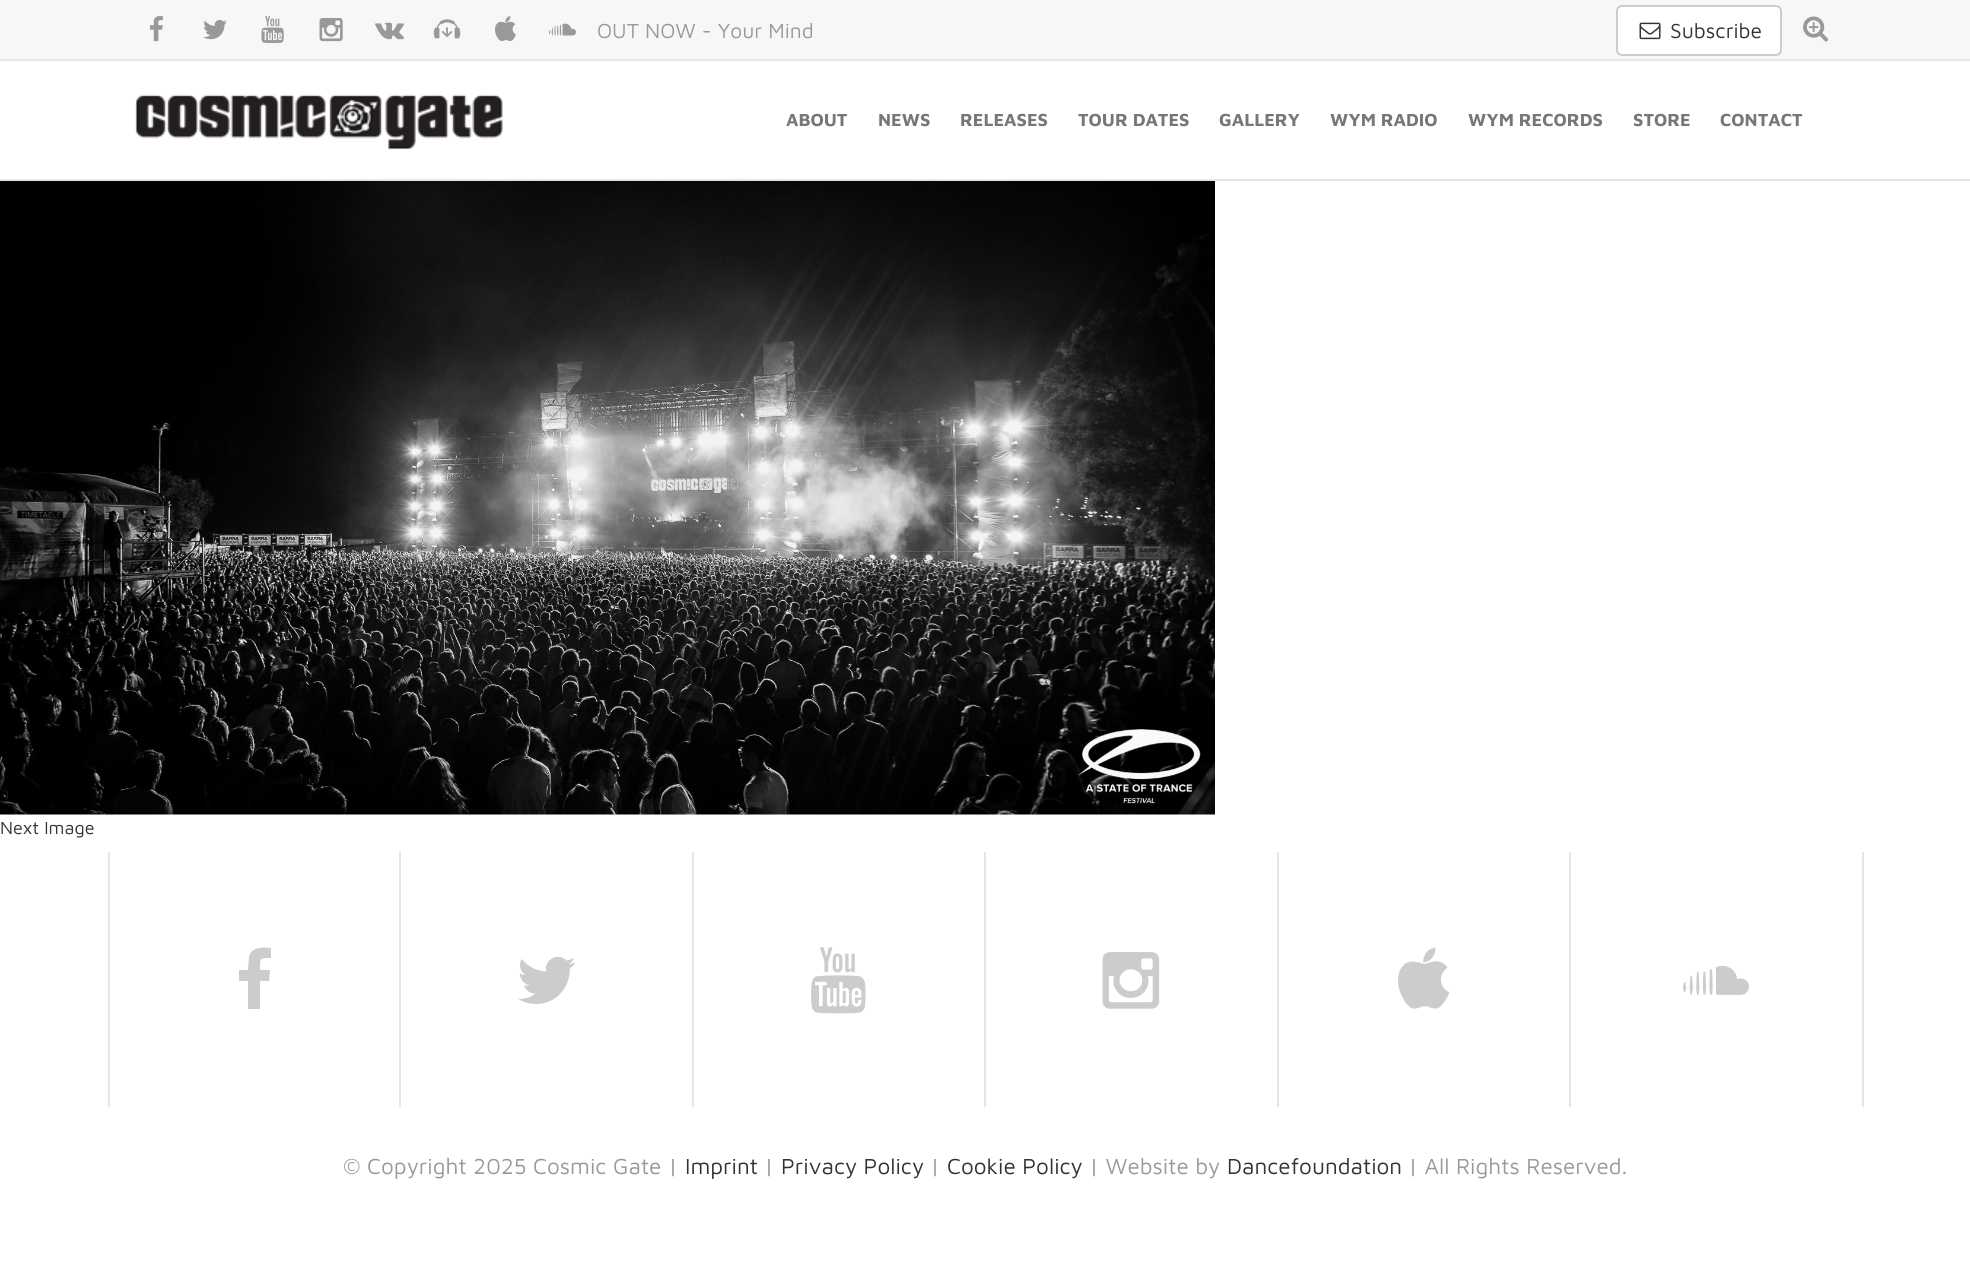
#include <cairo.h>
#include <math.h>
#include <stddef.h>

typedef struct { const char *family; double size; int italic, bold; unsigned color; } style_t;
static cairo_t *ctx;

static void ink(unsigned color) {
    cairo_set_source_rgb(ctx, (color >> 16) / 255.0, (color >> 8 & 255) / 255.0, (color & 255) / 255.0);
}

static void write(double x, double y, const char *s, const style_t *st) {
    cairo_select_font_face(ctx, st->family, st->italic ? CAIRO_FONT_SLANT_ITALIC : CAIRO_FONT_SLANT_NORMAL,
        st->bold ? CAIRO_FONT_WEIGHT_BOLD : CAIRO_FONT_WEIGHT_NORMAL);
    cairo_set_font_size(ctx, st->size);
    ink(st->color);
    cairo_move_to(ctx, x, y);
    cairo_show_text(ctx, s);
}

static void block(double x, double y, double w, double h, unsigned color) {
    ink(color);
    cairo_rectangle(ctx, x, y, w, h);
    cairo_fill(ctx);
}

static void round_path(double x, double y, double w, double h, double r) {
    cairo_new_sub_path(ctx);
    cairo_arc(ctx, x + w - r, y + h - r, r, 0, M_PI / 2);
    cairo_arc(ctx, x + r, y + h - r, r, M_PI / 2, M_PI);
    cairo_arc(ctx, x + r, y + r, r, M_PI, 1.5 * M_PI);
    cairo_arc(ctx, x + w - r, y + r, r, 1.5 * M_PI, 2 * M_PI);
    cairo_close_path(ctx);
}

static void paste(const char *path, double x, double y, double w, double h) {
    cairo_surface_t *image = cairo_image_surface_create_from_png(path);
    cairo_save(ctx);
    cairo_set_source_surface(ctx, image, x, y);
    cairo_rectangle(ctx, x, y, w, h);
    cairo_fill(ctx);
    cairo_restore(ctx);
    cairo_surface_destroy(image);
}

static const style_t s1 = {"Maven Pro", 21, 0, 0, 0x999999};
static const style_t s2 = {"Maven Pro", 21, 0, 0, 0x333333};
static const style_t s3 = {"Maven Pro", 18, 0, 1, 0x777777};
static const style_t s4 = {"Maven Pro", 18, 0, 0, 0x333333};
static const style_t s5 = {"Maven Pro", 22.5, 0, 0, 0x999999};
static const style_t s6 = {"Maven Pro", 22.5, 0, 0, 0x333333};

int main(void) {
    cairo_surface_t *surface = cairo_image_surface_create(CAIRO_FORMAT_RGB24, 1970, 1268);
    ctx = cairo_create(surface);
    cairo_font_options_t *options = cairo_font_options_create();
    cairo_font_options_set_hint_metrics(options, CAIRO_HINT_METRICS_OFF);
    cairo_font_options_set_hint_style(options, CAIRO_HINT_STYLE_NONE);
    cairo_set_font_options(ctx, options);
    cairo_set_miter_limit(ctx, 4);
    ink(0xffffff);
    cairo_paint(ctx);
    block(0, 179, 1970, 2, 0xe6e6e6);
    block(0, 0, 1970, 59, 0xf7f7f7);
    block(0, 59, 1970, 2, 0xe6e6e6);
    paste("pic1.png", 149, 16, 14, 26);
    paste("pic2.png", 203, 19, 24, 21);
    paste("pic3.png", 261, 16, 23, 28);
    paste("pic4.png", 319, 18, 24, 24);
    paste("pic5.png", 375, 22, 29, 18);
    paste("pic6.png", 433, 19, 28, 20);
    paste("pic7.png", 495, 16, 21, 26);
    paste("pic8.png", 549, 23, 27, 13);
    write(597, 38, "OUT NOW - Your Mind", &s1);
    ink(0xffffff);
    round_path(1617, 6, 164, 49, 5);
    cairo_fill_preserve(ctx);
    ink(0xcccccc);
    cairo_stroke(ctx);
    paste("pic9.png", 1639, 22, 22, 18);
    write(1670, 38, "Subscribe", &s2);
    paste("pic10.png", 1803, 16, 26, 26);
    paste("pic11.png", 135, 94, 368, 56);
    write(786, 126, "ABOUT", &s3);
    write(878, 126, "NEWS", &s3);
    write(960, 126, "RELEASES", &s3);
    write(1078, 126, "TOUR DATES", &s3);
    write(1219, 126, "GALLERY", &s3);
    write(1330, 126, "WYM RADIO", &s3);
    write(1468, 126, "WYM RECORDS", &s3);
    write(1633, 126, "STORE", &s3);
    write(1720, 126, "CONTACT", &s3);
    paste("pic12.png", 0, 181, 1215, 634);
    write(0, 834, "Next Image", &s4);
    block(399, 852, 2, 255, 0xe6e6e6);
    block(108, 852, 2, 255, 0xe6e6e6);
    ink(0xcccccc);
    cairo_new_path(ctx);
    cairo_move_to(ctx, 271, 948);
    cairo_line_to(ctx, 271, 958);
    cairo_curve_to(ctx, 259, 958, 260, 958, 260, 970);
    cairo_line_to(ctx, 270, 970);
    cairo_line_to(ctx, 269, 981);
    cairo_line_to(ctx, 260, 981);
    cairo_line_to(ctx, 260, 1009);
    cairo_line_to(ctx, 248, 1009);
    cairo_line_to(ctx, 248, 981);
    cairo_line_to(ctx, 239, 981);
    cairo_line_to(ctx, 239, 970);
    cairo_line_to(ctx, 248, 970);
    cairo_line_to(ctx, 249, 957);
    cairo_curve_to(ctx, 251, 947, 262, 947, 271, 948);
    cairo_close_path(ctx);
    cairo_fill(ctx);
    block(692, 852, 2, 255, 0xe6e6e6);
    paste("pic13.png", 518, 956, 58, 48);
    block(984, 852, 2, 255, 0xe6e6e6);
    paste("pic14.png", 811, 947, 55, 67);
    block(1277, 852, 2, 255, 0xe6e6e6);
    paste("pic15.png", 1102, 952, 58, 57);
    block(1569, 852, 2, 255, 0xe6e6e6);
    paste("pic16.png", 1398, 947, 52, 62);
    block(1862, 852, 2, 255, 0xe6e6e6);
    paste("pic17.png", 1683, 965, 66, 30);
    write(343, 1174, "© Copyright 2025 Cosmic Gate |", &s5);
    write(685, 1174, "Imprint", &s6);
    write(764, 1174, "|", &s5);
    write(781, 1174, "Privacy Policy", &s6);
    write(930, 1174, "|", &s5);
    write(947, 1174, "Cookie Policy", &s6);
    write(1089, 1174, "| Website by", &s5);
    write(1227, 1174, "Dancefoundation", &s6);
    write(1408, 1174, "| All Rights Reserved.", &s5);
    cairo_surface_write_to_png(surface, "screenshot.png");
    cairo_font_options_destroy(options);
    cairo_destroy(ctx);
    cairo_surface_destroy(surface);
    return 0;
}
